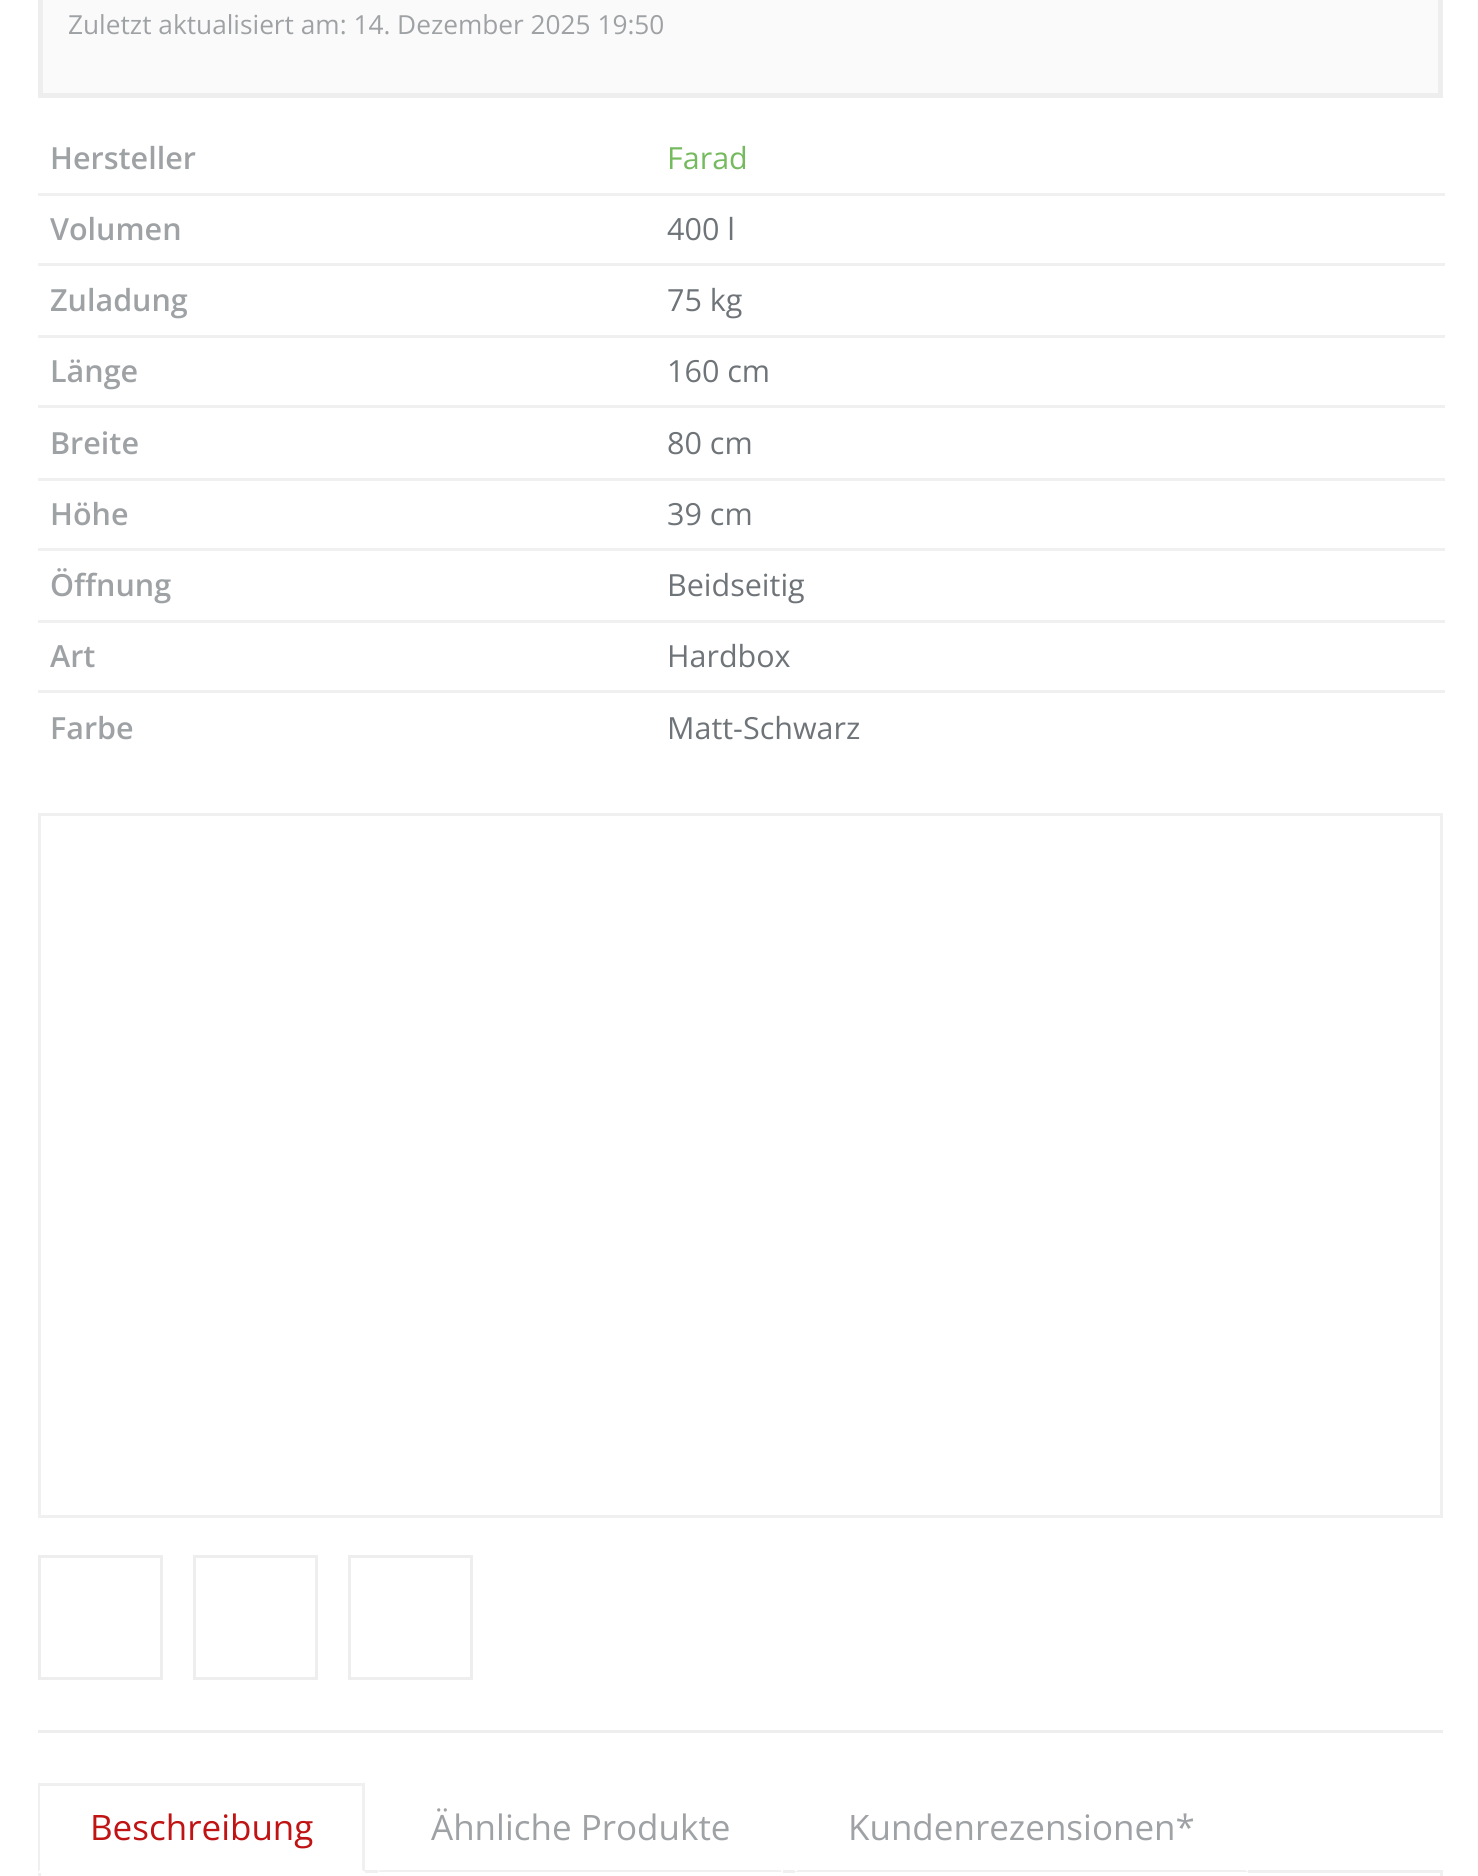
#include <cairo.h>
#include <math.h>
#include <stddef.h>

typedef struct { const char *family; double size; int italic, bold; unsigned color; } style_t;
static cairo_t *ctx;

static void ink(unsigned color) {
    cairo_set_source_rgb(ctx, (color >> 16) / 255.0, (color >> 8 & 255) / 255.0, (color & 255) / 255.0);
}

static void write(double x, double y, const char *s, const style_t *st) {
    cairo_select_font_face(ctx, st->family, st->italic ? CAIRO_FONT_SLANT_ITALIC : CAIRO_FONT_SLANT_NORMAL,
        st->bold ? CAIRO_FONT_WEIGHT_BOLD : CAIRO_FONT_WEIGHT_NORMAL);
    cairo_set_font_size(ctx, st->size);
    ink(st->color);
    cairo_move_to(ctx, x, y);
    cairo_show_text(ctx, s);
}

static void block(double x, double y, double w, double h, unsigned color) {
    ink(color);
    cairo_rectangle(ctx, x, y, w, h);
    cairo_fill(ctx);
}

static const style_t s1 = {"Open Sans", 26.25, 0, 0, 0x9fa2a5};
static const style_t s2 = {"Open Sans SemiBold", 30.5, 0, 0, 0x9fa2a5};
static const style_t s3 = {"Open Sans", 30.5, 0, 0, 0x75ba5f};
static const style_t s4 = {"Open Sans", 30.5, 0, 0, 0x6f7479};
static const style_t s5 = {"Open Sans", 35, 0, 0, 0xc01313};
static const style_t s6 = {"Open Sans", 35, 0, 0, 0x9fa2a5};

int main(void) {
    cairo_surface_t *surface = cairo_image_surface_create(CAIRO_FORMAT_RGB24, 1478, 1876);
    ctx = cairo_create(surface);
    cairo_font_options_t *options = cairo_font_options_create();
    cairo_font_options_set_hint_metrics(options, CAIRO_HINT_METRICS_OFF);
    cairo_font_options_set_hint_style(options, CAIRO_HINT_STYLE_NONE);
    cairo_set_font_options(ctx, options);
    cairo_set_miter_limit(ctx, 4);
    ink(0xffffff);
    cairo_paint(ctx);
    ink(0xfafafa);
    cairo_rectangle(ctx, 40.5, -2.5, 1400, 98);
    cairo_fill_preserve(ctx);
    ink(0xeeeeee);
    cairo_set_line_width(ctx, 5);
    cairo_stroke(ctx);
    write(68, 34, "Zuletzt aktualisiert am: 14. Dezember 2025 19:50", &s1);
    write(50, 169, "Hersteller", &s2);
    write(667, 169, "Farad", &s3);
    write(50, 240, "Volumen", &s2);
    block(38, 193, 1407, 3, 0xf0f0f0);
    write(667, 240, "400 l", &s4);
    write(50, 311, "Zuladung", &s2);
    block(38, 263, 1407, 3, 0xf0f0f0);
    write(667, 311, "75 kg", &s4);
    write(50, 382, "Länge", &s2);
    block(38, 335, 1407, 3, 0xf0f0f0);
    write(667, 382, "160 cm", &s4);
    write(50, 454, "Breite", &s2);
    block(38, 405, 1407, 3, 0xf0f0f0);
    write(667, 454, "80 cm", &s4);
    write(50, 525, "Höhe", &s2);
    block(38, 478, 1407, 3, 0xf0f0f0);
    write(667, 525, "39 cm", &s4);
    write(50, 596, "Öffnung", &s2);
    block(38, 548, 1407, 3, 0xf0f0f0);
    write(667, 596, "Beidseitig", &s4);
    write(50, 667, "Art", &s2);
    block(38, 620, 1407, 3, 0xf0f0f0);
    write(667, 667, "Hardbox", &s4);
    write(50, 739, "Farbe", &s2);
    block(38, 690, 1407, 3, 0xf0f0f0);
    write(667, 739, "Matt-Schwarz", &s4);
    cairo_rectangle(ctx, 39.5, 814.5, 1402, 702);
    ink(0xf0f0f0);
    cairo_set_line_width(ctx, 3);
    cairo_stroke(ctx);
    cairo_rectangle(ctx, 39.5, 1556.5, 122, 122);
    ink(0xeeeeee);
    cairo_stroke(ctx);
    cairo_rectangle(ctx, 194.5, 1556.5, 122, 122);
    cairo_stroke(ctx);
    cairo_rectangle(ctx, 349.5, 1556.5, 122, 122);
    cairo_stroke(ctx);
    block(38, 1730, 1405, 3, 0xeeeeee);
    block(365, 1870, 1078, 3, 0xf0f0f0);
    block(38, 1783, 327, 3, 0xf0f0f0);
    cairo_new_path(ctx);
    cairo_move_to(ctx, 365, 1782);
    cairo_line_to(ctx, 365, 1872);
    cairo_line_to(ctx, 362, 1870);
    cairo_line_to(ctx, 362, 1785);
    cairo_close_path(ctx);
    cairo_fill(ctx);
    cairo_new_path(ctx);
    cairo_move_to(ctx, 38, 1872);
    cairo_line_to(ctx, 38, 1782);
    cairo_line_to(ctx, 40, 1785);
    cairo_line_to(ctx, 40, 1870);
    cairo_close_path(ctx);
    cairo_fill(ctx);
    write(90, 1840, "Beschreibung", &s5);
    block(378, 1870, 405, 3, 0xffffff);
    ink(0xf0f0f0);
    cairo_new_path(ctx);
    cairo_move_to(ctx, 782, 1872);
    cairo_line_to(ctx, 378, 1872);
    cairo_line_to(ctx, 380, 1870);
    cairo_line_to(ctx, 780, 1870);
    cairo_close_path(ctx);
    cairo_fill(ctx);
    write(431, 1840, "Ähnliche Produkte", &s6);
    block(795, 1870, 453, 3, 0xffffff);
    ink(0xf0f0f0);
    cairo_new_path(ctx);
    cairo_move_to(ctx, 1248, 1872);
    cairo_line_to(ctx, 795, 1872);
    cairo_line_to(ctx, 798, 1870);
    cairo_line_to(ctx, 1245, 1870);
    cairo_close_path(ctx);
    cairo_fill(ctx);
    write(848, 1840, "Kundenrezensionen*", &s6);
    block(1440, 1873, 3, 3, 0xf0f0f0);
    block(38, 1873, 3, 3, 0xf0f0f0);
    cairo_surface_write_to_png(surface, "screenshot.png");
    cairo_font_options_destroy(options);
    cairo_destroy(ctx);
    cairo_surface_destroy(surface);
    return 0;
}
